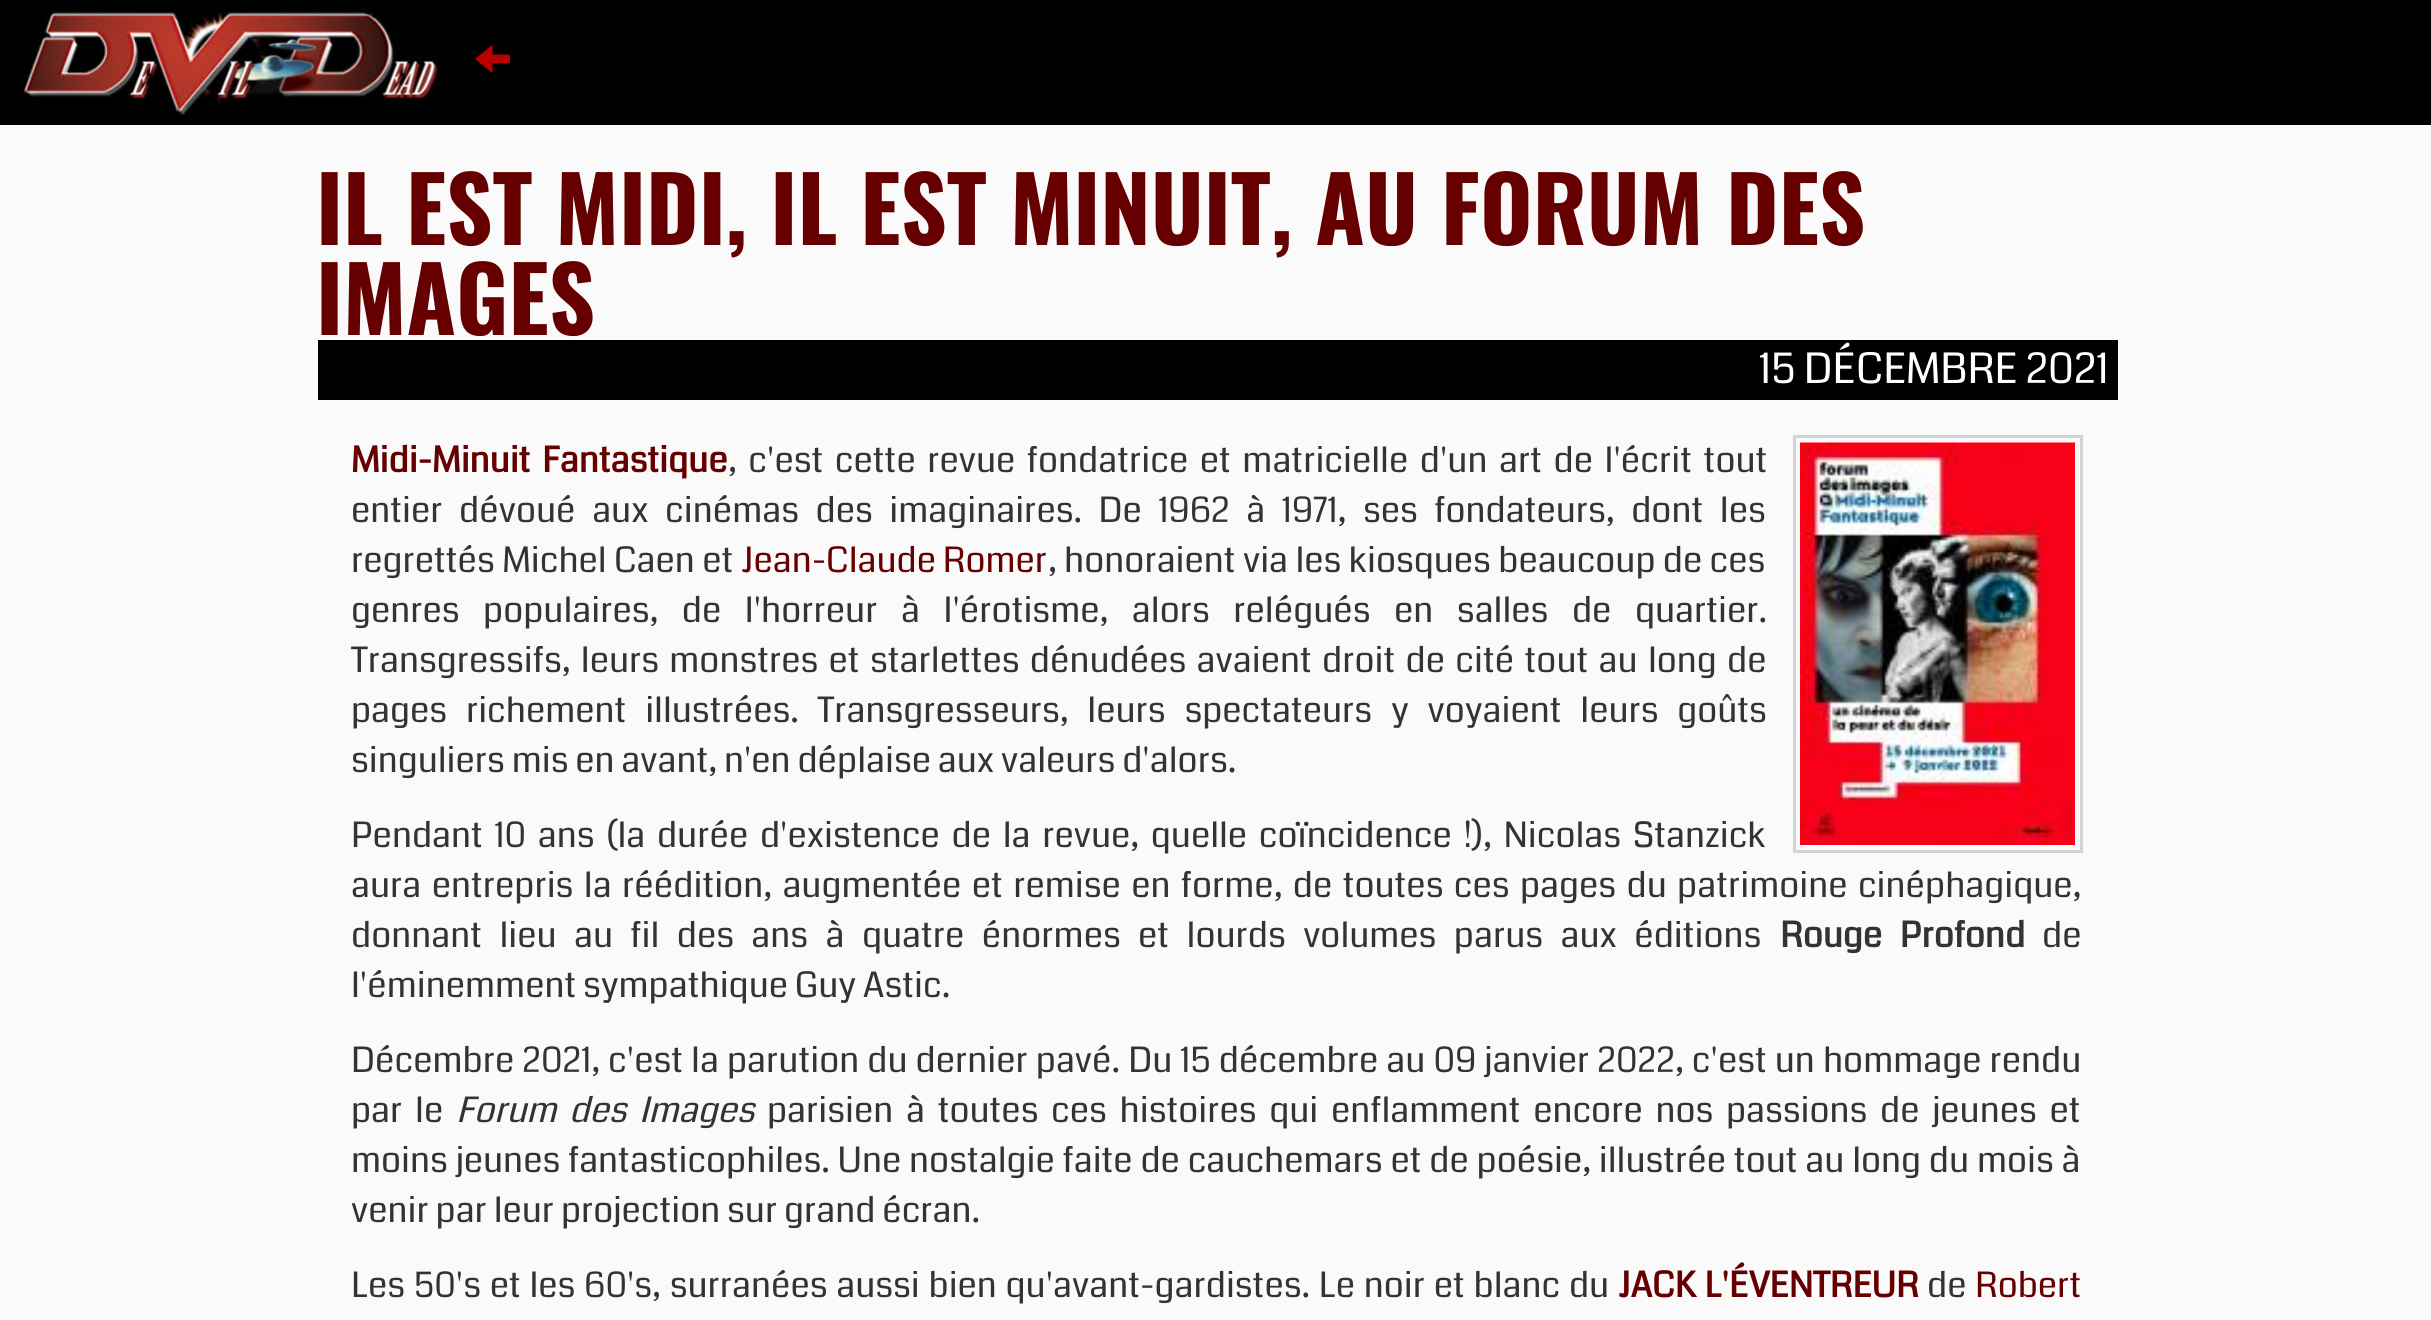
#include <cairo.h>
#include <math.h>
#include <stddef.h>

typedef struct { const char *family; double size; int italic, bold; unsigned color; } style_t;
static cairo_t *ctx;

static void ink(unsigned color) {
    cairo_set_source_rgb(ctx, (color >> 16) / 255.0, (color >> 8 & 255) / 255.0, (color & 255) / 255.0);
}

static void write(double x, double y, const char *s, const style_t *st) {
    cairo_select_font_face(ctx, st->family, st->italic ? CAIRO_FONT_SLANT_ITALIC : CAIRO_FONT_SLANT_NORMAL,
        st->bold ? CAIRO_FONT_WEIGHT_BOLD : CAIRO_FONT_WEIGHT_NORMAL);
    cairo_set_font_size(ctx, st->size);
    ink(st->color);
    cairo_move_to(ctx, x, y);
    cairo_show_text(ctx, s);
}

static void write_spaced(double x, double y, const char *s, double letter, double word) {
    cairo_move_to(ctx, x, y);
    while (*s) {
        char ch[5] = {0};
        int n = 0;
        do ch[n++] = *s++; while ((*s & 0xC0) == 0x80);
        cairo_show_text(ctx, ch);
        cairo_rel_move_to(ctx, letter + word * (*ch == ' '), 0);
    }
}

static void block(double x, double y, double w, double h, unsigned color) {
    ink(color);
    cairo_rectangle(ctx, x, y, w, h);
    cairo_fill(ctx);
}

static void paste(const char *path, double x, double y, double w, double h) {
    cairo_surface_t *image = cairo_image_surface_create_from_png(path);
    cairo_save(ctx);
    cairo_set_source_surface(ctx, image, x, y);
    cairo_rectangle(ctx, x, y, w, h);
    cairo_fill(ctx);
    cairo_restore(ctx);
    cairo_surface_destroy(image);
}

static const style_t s1 = {"Oswald", 90, 0, 1, 0x660000};
static const style_t s2 = {"Coda", 42, 0, 0, 0xffffff};
static const style_t s3 = {"Coda", 35, 0, 0, 0x660000};
static const style_t s4 = {"Coda", 35, 0, 0, 0x333333};

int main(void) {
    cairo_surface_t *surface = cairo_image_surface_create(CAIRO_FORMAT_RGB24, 2431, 1320);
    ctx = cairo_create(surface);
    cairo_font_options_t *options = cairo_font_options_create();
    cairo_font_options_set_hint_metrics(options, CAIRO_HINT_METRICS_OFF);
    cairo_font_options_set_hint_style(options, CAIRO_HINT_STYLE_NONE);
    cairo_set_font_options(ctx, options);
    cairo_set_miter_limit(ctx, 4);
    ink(0xfafafa);
    cairo_paint(ctx);
    block(0, 0, 2431, 125, 0x000000);
    paste("pic1.png", 23, 7, 417, 109);
    paste("pic2.png", 475, 45, 35, 28);
    write(316, 245, "IL EST MIDI, IL EST MINUIT, AU FORUM DES", &s1);
    write(316, 335, "IMAGES", &s1);
    block(318, 340, 1800, 60, 0x000000);
    write(1759, 383, "15 DÉCEMBRE 2021", &s2);
    cairo_select_font_face(ctx, "Coda", CAIRO_FONT_SLANT_NORMAL, CAIRO_FONT_WEIGHT_BOLD);
    cairo_set_font_size(ctx, 35);
    ink(0x660000);
    write_spaced(351, 472, "Midi-Minuit Fantastique", 0, 4.75);
    cairo_select_font_face(ctx, "Coda", CAIRO_FONT_SLANT_NORMAL, CAIRO_FONT_WEIGHT_NORMAL);
    ink(0x333333);
    write_spaced(728, 472, ", c'est cette revue fondatrice et matricielle d'un art de l'écrit tout", 0, 4.75);
    write_spaced(351, 522, "entier dévoué aux cinémas des imaginaires. De 1962 à 1971, ses fondateurs, dont les", 0, 9.75);
    write_spaced(351, 572, "regrettés Michel Caen et", 0, 0.5);
    write(741, 572, "Jean-Claude Romer", &s3);
    ink(0x333333);
    write_spaced(1048, 572, ", honoraient via les kiosques beaucoup de ces", 0, 0.5);
    write_spaced(351, 622, "genres populaires, de l'horreur à l'érotisme, alors relégués en salles de quartier.", 0, 16.75);
    write_spaced(351, 672, "Transgressifs, leurs monstres et starlettes dénudées avaient droit de cité tout au long de", 0, 3.5);
    write_spaced(351, 722, "pages richement illustrées. Transgresseurs, leurs spectateurs y voyaient leurs goûts", 0, 12);
    write(351, 772, "singuliers mis en avant, n'en déplaise aux valeurs d'alors.", &s4);
    cairo_rectangle(ctx, 1794.5, 436.5, 287, 415);
    ink(0xd3d3d3);
    cairo_set_line_width(ctx, 3);
    cairo_stroke(ctx);
    paste("pic3.png", 1800, 442, 275, 403);
    ink(0x333333);
    write_spaced(351, 847, "Pendant 10 ans (la durée d'existence de la revue, quelle coïncidence !), Nicolas Stanzick", 0, 4.9);
    write_spaced(351, 897, "aura entrepris la réédition, augmentée et remise en forme, de toutes ces pages du patrimoine cinéphagique,", 0, 3.6);
    write_spaced(351, 947, "donnant lieu au fil des ans à quatre énormes et lourds volumes parus aux éditions", 0, 10.6);
    cairo_select_font_face(ctx, "Coda", CAIRO_FONT_SLANT_NORMAL, CAIRO_FONT_WEIGHT_BOLD);
    write_spaced(1780, 947, "Rouge Profond", 0, 11);
    write(2042, 947, "de", &s4);
    write(351, 997, "l'éminemment sympathique Guy Astic.", &s4);
    write_spaced(351, 1072, "Décembre 2021, c'est la parution du dernier pavé. Du 15 décembre au 09 janvier 2022, c'est un hommage rendu", 0, 1.25);
    write_spaced(351, 1122, "par le", 0, 5.9);
    cairo_select_font_face(ctx, "Coda", CAIRO_FONT_SLANT_ITALIC, CAIRO_FONT_WEIGHT_NORMAL);
    write_spaced(456, 1122, "Forum des Images", 0, 5.9);
    cairo_select_font_face(ctx, "Coda", CAIRO_FONT_SLANT_NORMAL, CAIRO_FONT_WEIGHT_NORMAL);
    write_spaced(767, 1122, "parisien à toutes ces histoires qui enflamment encore nos passions de jeunes et", 0, 5.9);
    write_spaced(351, 1172, "moins jeunes fantasticophiles. Une nostalgie faite de cauchemars et de poésie, illustrée tout au long du mois à", 0, 1);
    write(351, 1222, "venir par leur projection sur grand écran.", &s4);
    write_spaced(351, 1297, "Les 50's et les 60's, surranées aussi bien qu'avant-gardistes. Le noir et blanc du", 0, 1.9);
    cairo_select_font_face(ctx, "Coda", CAIRO_FONT_SLANT_NORMAL, CAIRO_FONT_WEIGHT_BOLD);
    ink(0x660000);
    write_spaced(1618, 1297, "JACK L'ÉVENTREUR", 0, 2);
    write(1927, 1297, "de", &s4);
    write(1975, 1297, "Robert", &s3);
    cairo_surface_write_to_png(surface, "screenshot.png");
    cairo_font_options_destroy(options);
    cairo_destroy(ctx);
    cairo_surface_destroy(surface);
    return 0;
}
